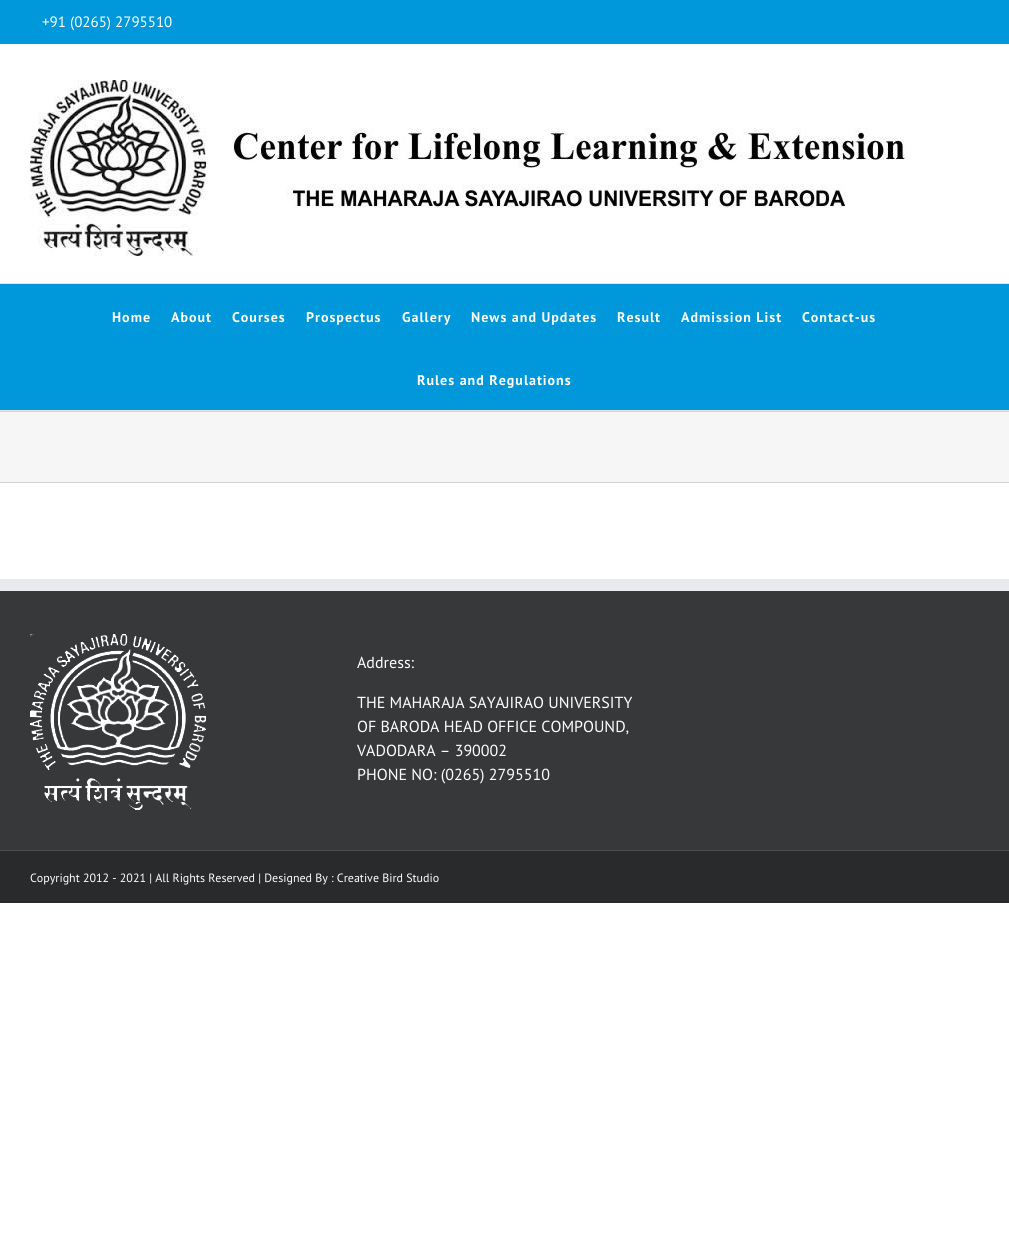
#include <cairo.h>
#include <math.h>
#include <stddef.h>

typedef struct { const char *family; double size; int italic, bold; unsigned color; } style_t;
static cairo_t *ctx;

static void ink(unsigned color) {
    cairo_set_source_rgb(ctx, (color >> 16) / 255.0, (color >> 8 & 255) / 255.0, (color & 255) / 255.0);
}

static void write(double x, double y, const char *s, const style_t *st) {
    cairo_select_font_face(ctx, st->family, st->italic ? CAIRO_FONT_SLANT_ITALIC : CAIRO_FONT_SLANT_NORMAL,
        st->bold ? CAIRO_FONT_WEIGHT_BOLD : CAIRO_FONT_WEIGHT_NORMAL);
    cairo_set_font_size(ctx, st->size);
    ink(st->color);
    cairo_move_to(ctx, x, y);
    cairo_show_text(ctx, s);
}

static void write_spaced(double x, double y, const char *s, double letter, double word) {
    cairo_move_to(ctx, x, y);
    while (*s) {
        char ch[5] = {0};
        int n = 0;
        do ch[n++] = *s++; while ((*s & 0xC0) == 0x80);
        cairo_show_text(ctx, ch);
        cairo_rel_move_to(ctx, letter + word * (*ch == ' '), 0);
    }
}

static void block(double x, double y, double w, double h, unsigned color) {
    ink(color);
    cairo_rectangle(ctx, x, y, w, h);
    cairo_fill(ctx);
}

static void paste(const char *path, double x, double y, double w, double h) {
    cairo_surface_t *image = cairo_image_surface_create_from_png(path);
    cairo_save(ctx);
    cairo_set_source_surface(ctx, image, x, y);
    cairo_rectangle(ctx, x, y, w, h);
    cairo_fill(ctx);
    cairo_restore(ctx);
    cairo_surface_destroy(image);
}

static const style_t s1 = {"PT Sans", 15, 0, 0, 0xffffff};
static const style_t s2 = {"PT Sans", 16, 0, 0, 0xffffff};
static const style_t s3 = {"PT Sans", 12, 0, 0, 0xffffff};

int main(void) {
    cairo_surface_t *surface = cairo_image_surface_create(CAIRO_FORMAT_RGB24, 1009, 1243);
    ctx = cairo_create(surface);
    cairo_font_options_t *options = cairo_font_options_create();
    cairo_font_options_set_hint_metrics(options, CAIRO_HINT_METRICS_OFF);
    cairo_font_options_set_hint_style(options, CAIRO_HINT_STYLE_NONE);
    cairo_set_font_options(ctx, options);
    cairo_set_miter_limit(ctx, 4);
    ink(0xffffff);
    cairo_paint(ctx);
    block(0, 0, 1009, 44, 0x0098db);
    write(42, 27, "+91 (0265) 2795510", &s1);
    block(0, 283, 1009, 1, 0xe5e5e5);
    paste("pic1.png", 30, 80, 875, 176);
    block(0, 284, 1009, 126, 0x0098db);
    block(0, 410, 1009, 1, 0xe5e5e5);
    cairo_select_font_face(ctx, "PT Sans", CAIRO_FONT_SLANT_NORMAL, CAIRO_FONT_WEIGHT_BOLD);
    cairo_set_font_size(ctx, 14);
    ink(0xffffff);
    write_spaced(112, 322, "Home", 1, 0);
    write_spaced(171, 322, "About", 1, 0);
    write_spaced(232, 322, "Courses", 1, 0);
    write_spaced(306, 322, "Prospectus", 1, 0);
    write_spaced(402, 322, "Gallery", 1, 0);
    write_spaced(471, 322, "News and Updates", 1, 0);
    write_spaced(617, 322, "Result", 1, 0);
    write_spaced(681, 322, "Admission List", 1, 0);
    write_spaced(802, 322, "Contact-us", 1, 0);
    write_spaced(417, 385, "Rules and Regulations", 1, 0);
    block(0, 412, 1009, 70, 0xf6f6f6);
    block(0, 411, 1009, 1, 0xd2d3d4);
    block(0, 482, 1009, 1, 0xd2d3d4);
    block(0, 591, 1009, 259, 0x363839);
    block(0, 579, 1009, 12, 0xe9eaee);
    paste("pic2.png", 30, 634, 176, 176);
    write(357, 668, "Address:", &s2);
    write(357, 708, "THE MAHARAJA SAYAJIRAO UNIVERSITY", &s2);
    write(357, 732, "OF BARODA HEAD OFFICE COMPOUND,", &s2);
    write(357, 756, "VADODARA – 390002", &s2);
    write(357, 780, "PHONE NO: (0265) 2795510", &s2);
    block(0, 851, 1009, 52, 0x282a2b);
    block(0, 850, 1009, 1, 0x4b4c4d);
    write(30, 882, "Copyright 2012 - 2021 | All Rights Reserved | Designed By : Creative Bird Studio", &s3);
    cairo_surface_write_to_png(surface, "screenshot.png");
    cairo_font_options_destroy(options);
    cairo_destroy(ctx);
    cairo_surface_destroy(surface);
    return 0;
}
